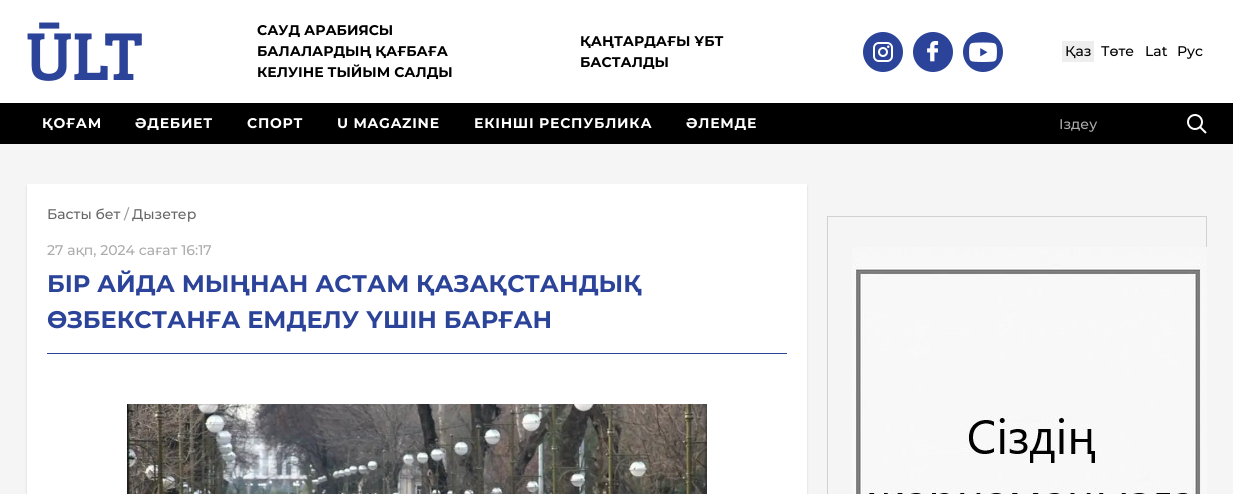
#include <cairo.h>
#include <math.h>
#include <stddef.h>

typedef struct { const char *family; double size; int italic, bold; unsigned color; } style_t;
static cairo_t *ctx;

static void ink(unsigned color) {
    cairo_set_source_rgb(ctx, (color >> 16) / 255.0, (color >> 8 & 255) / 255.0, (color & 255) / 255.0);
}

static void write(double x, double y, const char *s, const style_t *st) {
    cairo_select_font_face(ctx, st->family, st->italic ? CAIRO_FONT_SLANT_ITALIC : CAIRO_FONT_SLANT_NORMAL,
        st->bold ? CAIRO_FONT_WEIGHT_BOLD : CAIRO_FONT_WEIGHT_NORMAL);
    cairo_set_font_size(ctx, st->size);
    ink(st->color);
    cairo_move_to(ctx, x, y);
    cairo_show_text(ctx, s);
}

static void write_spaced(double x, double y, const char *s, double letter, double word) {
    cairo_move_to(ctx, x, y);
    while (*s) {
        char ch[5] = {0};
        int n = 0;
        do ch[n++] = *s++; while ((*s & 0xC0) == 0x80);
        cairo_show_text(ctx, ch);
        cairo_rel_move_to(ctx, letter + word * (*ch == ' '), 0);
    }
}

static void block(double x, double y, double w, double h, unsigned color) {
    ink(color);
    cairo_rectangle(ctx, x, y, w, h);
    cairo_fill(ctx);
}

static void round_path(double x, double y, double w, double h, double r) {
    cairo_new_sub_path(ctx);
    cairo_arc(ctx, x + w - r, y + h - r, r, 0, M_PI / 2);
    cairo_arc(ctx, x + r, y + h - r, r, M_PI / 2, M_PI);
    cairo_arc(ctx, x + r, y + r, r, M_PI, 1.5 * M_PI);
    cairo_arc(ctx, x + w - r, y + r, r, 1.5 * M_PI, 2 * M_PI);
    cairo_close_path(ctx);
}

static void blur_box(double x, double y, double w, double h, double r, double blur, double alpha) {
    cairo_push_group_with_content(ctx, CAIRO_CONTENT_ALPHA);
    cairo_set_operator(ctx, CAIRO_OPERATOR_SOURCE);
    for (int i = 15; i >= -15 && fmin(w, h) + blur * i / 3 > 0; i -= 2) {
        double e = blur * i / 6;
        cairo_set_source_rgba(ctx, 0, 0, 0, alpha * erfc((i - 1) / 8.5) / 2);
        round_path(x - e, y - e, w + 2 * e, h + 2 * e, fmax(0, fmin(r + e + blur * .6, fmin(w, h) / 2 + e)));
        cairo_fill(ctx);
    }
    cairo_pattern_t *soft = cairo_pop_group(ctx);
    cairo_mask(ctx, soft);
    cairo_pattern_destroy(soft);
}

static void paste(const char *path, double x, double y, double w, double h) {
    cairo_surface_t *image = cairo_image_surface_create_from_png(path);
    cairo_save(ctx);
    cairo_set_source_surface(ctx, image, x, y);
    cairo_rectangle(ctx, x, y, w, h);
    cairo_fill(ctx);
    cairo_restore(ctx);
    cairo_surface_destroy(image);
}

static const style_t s1 = {"Montserrat", 14, 0, 1, 0x000000};
static const style_t s2 = {"Montserrat Medium", 14, 0, 0, 0x000000};
static const style_t s3 = {"Montserrat Medium", 14, 0, 0, 0xacacac};
static const style_t s4 = {"Montserrat Medium", 14, 0, 0, 0x666666};
static const style_t s5 = {"Montserrat Medium", 14, 0, 0, 0x999999};
static const style_t s6 = {"Montserrat", 24, 0, 1, 0x2b4399};

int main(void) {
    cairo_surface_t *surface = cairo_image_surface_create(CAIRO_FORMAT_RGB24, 1233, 494);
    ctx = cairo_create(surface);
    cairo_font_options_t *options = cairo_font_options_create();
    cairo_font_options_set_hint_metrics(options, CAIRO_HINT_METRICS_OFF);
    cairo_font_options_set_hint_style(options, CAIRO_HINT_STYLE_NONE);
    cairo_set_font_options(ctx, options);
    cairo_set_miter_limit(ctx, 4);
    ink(0xffffff);
    cairo_paint(ctx);
    paste("pic1.png", 27, 22, 115, 59);
    write(257, 35, "САУД АРАБИЯСЫ", &s1);
    write(257, 56, "БАЛАЛАРДЫҢ ҚАҒБАҒА", &s1);
    write(257, 77, "КЕЛУІНЕ ТЫЙЫМ САЛДЫ", &s1);
    write(580, 46, "ҚАҢТАРДАҒЫ ҰБТ", &s1);
    write(580, 67, "БАСТАЛДЫ", &s1);
    paste("pic2.png", 863, 32, 40, 40);
    paste("pic3.png", 913, 32, 40, 40);
    paste("pic4.png", 963, 32, 40, 40);
    block(1062, 41, 32, 21, 0xeeeeee);
    write(1065, 56, "Қаз", &s2);
    write(1101, 56, "Төте", &s2);
    write(1145, 56, "Lat", &s2);
    write(1177, 56, "Рус", &s2);
    block(0, 103, 1233, 41, 0x000000);
    cairo_select_font_face(ctx, "Montserrat", CAIRO_FONT_SLANT_NORMAL, CAIRO_FONT_WEIGHT_BOLD);
    ink(0xffffff);
    write_spaced(42, 128, "ҚОҒАМ", 0.75, 0);
    write_spaced(135, 128, "ӘДЕБИЕТ", 0.75, 0);
    write_spaced(247, 128, "СПОРТ", 0.75, 0);
    write_spaced(337, 128, "U MAGAZINE", 0.75, 0);
    write_spaced(474, 128, "ЕКІНШІ РЕСПУБЛИКА", 0.75, 0);
    write_spaced(686, 128, "ӘЛЕМДЕ", 0.75, 0);
    write(1059, 129, "Іздеу", &s3);
    paste("pic5.png", 1187, 114, 20, 20);
    block(0, 144, 1233, 350, 0xf5f5f5);
    ink(0x000000);
    blur_box(27, 186, 780, 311, 0, 1, 0.15);
    block(27, 184, 780, 310, 0xffffff);
    write(47, 219, "Басты бет", &s4);
    write(124, 219, "/", &s5);
    write(132, 219, "Дызетер", &s4);
    write(47, 255, "27 ақп, 2024 сағат 16:17", &s3);
    block(47, 353, 740, 1, 0x2b4399);
    write(47, 292, "БІР АЙДА МЫҢНАН АСТАМ ҚАЗАҚСТАНДЫҚ", &s6);
    write(47, 328, "ӨЗБЕКСТАНҒА ЕМДЕЛУ ҮШІН БАРҒАН", &s6);
    paste("pic6.png", 127, 404, 580, 90);
    cairo_rectangle(ctx, 827.5, 216.5, 379, 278);
    ink(0xd1d1d1);
    cairo_set_line_width(ctx, 1);
    cairo_stroke(ctx);
    paste("pic7.png", 852, 247, 355, 247);
    cairo_surface_write_to_png(surface, "screenshot.png");
    cairo_font_options_destroy(options);
    cairo_destroy(ctx);
    cairo_surface_destroy(surface);
    return 0;
}
